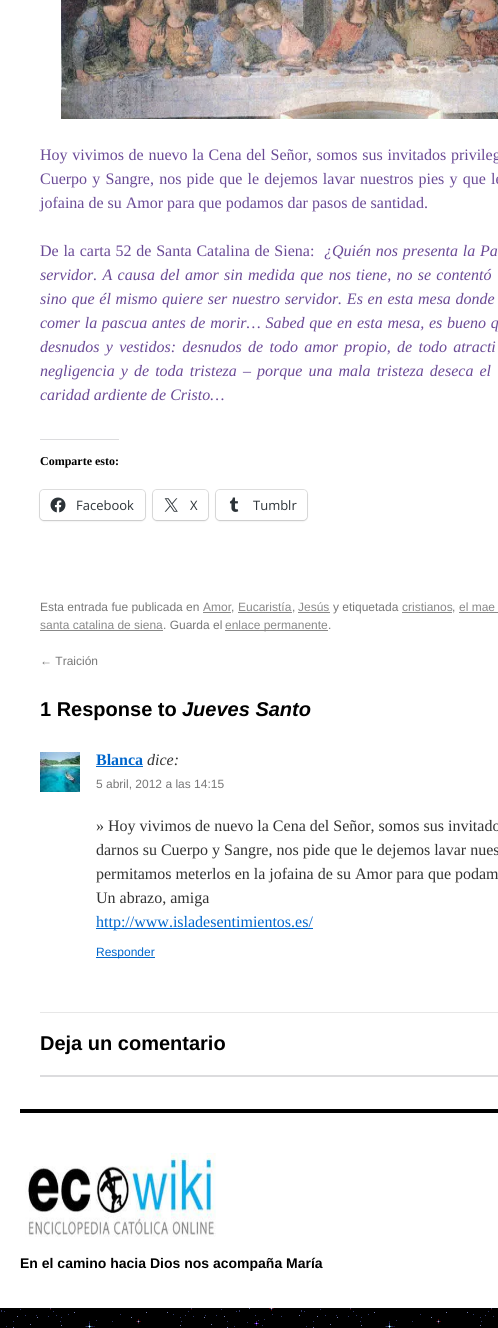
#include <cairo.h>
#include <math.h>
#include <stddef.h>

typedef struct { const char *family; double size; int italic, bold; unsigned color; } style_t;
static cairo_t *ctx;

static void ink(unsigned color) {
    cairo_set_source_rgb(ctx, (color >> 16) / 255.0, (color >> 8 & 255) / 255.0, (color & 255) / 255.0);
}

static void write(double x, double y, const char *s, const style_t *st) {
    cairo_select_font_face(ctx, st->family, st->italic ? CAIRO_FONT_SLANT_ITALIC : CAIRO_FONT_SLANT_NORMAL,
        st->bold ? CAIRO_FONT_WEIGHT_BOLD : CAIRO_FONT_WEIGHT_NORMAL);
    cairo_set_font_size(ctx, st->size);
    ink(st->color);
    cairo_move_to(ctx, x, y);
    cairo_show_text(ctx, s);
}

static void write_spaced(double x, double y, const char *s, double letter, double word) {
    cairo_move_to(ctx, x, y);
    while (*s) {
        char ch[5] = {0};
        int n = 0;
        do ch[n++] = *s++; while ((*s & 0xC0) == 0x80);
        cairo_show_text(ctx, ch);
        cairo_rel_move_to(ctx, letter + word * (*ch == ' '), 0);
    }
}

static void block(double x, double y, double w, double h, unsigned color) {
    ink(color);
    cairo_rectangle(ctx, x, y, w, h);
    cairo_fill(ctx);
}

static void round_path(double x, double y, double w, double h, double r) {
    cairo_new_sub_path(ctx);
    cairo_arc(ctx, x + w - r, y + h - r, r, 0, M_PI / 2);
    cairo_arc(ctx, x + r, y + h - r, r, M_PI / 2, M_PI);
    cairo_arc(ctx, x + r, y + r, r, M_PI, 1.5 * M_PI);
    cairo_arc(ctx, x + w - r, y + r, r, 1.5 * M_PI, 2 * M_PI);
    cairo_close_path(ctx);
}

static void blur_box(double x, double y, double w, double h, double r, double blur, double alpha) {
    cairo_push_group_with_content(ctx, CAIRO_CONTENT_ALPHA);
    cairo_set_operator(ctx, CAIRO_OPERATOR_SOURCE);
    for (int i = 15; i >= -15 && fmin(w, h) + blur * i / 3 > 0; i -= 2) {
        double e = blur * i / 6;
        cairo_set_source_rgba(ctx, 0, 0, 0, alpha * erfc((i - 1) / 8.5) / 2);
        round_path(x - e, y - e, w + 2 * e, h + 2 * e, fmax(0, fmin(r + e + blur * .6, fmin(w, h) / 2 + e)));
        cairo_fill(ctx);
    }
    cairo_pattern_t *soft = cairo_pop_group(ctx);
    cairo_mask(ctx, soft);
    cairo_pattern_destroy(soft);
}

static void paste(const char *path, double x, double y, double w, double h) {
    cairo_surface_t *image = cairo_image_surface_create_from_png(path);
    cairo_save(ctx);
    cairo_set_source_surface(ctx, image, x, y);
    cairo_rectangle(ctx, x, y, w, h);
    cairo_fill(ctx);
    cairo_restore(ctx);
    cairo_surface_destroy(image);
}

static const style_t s1 = {"Liberation Serif", 16, 0, 0, 0x6a4a96};
static const style_t s2 = {"Liberation Serif", 16, 1, 0, 0x6a4a96};
static const style_t s3 = {"Liberation Serif", 12, 0, 1, 0x000000};
static const style_t s4 = {"Open Sans", 13, 0, 0, 0x2c3338};
static const style_t s5 = {"Liberation Sans", 12, 0, 0, 0x777777};
static const style_t s6 = {"Liberation Sans", 12, 0, 0, 0x888888};
static const style_t s7 = {"Liberation Sans", 20, 0, 1, 0x000000};
static const style_t s8 = {"Liberation Sans", 20, 1, 1, 0x000000};
static const style_t s9 = {"Liberation Serif", 16, 0, 1, 0x0066cc};
static const style_t s10 = {"Liberation Serif", 16, 1, 0, 0x333333};
static const style_t s11 = {"Liberation Serif", 16, 0, 0, 0x333333};
static const style_t s12 = {"Liberation Serif", 16, 0, 0, 0x0066cc};
static const style_t s13 = {"Liberation Sans", 12, 0, 0, 0x0066cc};
static const style_t s14 = {"Liberation Sans", 14, 0, 1, 0x000000};

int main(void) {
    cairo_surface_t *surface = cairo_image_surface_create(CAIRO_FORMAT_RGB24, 498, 1328);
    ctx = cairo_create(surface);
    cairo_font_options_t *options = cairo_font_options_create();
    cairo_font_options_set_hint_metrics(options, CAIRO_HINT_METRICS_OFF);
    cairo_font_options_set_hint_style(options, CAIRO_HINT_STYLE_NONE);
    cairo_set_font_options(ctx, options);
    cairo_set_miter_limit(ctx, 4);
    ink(0xffffff);
    cairo_paint(ctx);
    paste("pic1.png", 0, 1308, 498, 20);
    paste("pic2.png", 61, 0, 437, 119);
    cairo_select_font_face(ctx, "Liberation Serif", CAIRO_FONT_SLANT_NORMAL, CAIRO_FONT_WEIGHT_NORMAL);
    cairo_set_font_size(ctx, 16);
    ink(0x6a4a96);
    write_spaced(40, 160, "Hoy vivimos de nuevo la Cena del Señor, somos sus invitados privileg", 0, 0.75);
    write_spaced(40, 184, "Cuerpo y Sangre, nos pide que le dejemos lavar nuestros pies y que le", 0, 1.2);
    write(40, 208, "jofaina de su Amor para que podamos dar pasos de santidad.", &s1);
    write_spaced(40, 256, "De la carta 52 de Santa Catalina de Siena:", 0, 0.75);
    cairo_select_font_face(ctx, "Liberation Serif", CAIRO_FONT_SLANT_ITALIC, CAIRO_FONT_WEIGHT_NORMAL);
    write_spaced(324, 256, "¿Quién nos presenta la Pa", 0, 0.75);
    write_spaced(40, 280, "servidor. A causa del amor sin medida que nos tiene, no se contentó", 0, 1.25);
    write_spaced(40, 304, "sino que él mismo quiere ser nuestro servidor. Es en esta mesa donde", 0, 0.75);
    write_spaced(40, 328, "comer la pascua antes de morir… Sabed que en esta mesa, es bueno q", 0, 0.7);
    write_spaced(40, 352, "desnudos y vestidos: desnudos de todo amor propio, de todo atracti", 0, 2.25);
    write_spaced(40, 376, "negligencia y de toda tristeza – porque una mala tristeza deseca el", 0, 2.1);
    write(40, 400, "caridad ardiente de Cristo…", &s2);
    block(40, 439, 79, 1, 0xdcdcde);
    write(40, 465, "Comparte esto:", &s3);
    round_path(39.5, 489.5, 106, 31, 4.5);
    ink(0xe0e0e0);
    cairo_set_line_width(ctx, 1);
    cairo_stroke(ctx);
    ink(0x000000);
    blur_box(40, 491, 105, 30, 4, 1, 0.12);
    ink(0xffffff);
    round_path(40, 490, 105, 30, 4);
    cairo_fill(ctx);
    paste("pic3.png", 50, 497, 16, 16);
    write(76, 510, "Facebook", &s4);
    round_path(152.5, 489.5, 56, 31, 4.5);
    ink(0xe0e0e0);
    cairo_stroke(ctx);
    ink(0x000000);
    blur_box(153, 491, 55, 30, 4, 1, 0.12);
    ink(0xffffff);
    round_path(153, 490, 55, 30, 4);
    cairo_fill(ctx);
    paste("pic4.png", 164, 498, 14, 14);
    write(190, 510, "X", &s4);
    round_path(215.5, 489.5, 92, 31, 4.5);
    ink(0xe0e0e0);
    cairo_stroke(ctx);
    ink(0x000000);
    blur_box(216, 491, 91, 30, 4, 1, 0.12);
    ink(0xffffff);
    round_path(216, 490, 91, 30, 4);
    cairo_fill(ctx);
    paste("pic5.png", 229, 497, 10, 15);
    write(253, 510, "Tumblr", &s4);
    write(40, 611, "Esta entrada fue publicada en", &s5);
    write(203, 611, "Amor", &s6);
    block(203, 612, 28, 1, 0x888888);
    write(231, 611, ",", &s5);
    write(238, 611, "Eucaristía", &s6);
    block(238, 612, 54, 1, 0x888888);
    write(292, 611, ",", &s5);
    write(298, 611, "Jesús", &s6);
    block(298, 612, 32, 1, 0x888888);
    write(333, 611, "y etiquetada", &s5);
    write(402, 611, "cristianos", &s6);
    block(402, 612, 50, 1, 0x888888);
    write(452, 611, ",", &s5);
    write(459, 611, "el mae", &s6);
    block(459, 612, 39, 1, 0x888888);
    write(40, 629, "santa catalina de siena", &s6);
    block(40, 630, 123, 1, 0x888888);
    write(163, 629, ". Guarda el", &s5);
    block(225, 630, 103, 1, 0x888888);
    write(225, 629, "enlace permanente", &s6);
    write(328, 629, ".", &s5);
    write(40, 665, "← Traición", &s5);
    write(40, 716, "1 Response to", &s7);
    write(182, 716, "Jueves Santo", &s8);
    paste("pic6.png", 40, 752, 40, 40);
    write(96, 765, "Blanca", &s9);
    block(96, 766, 47, 1, 0x0066cc);
    write(147, 765, "dice:", &s10);
    write(96, 788, "5 abril, 2012 a las 14:15", &s5);
    write(96, 831, "» Hoy vivimos de nuevo la Cena del Señor, somos sus invitado", &s11);
    write(96, 855, "darnos su Cuerpo y Sangre, nos pide que le dejemos lavar nues", &s11);
    write(96, 879, "permitamos meterlos en la jofaina de su Amor para que podam", &s11);
    write(96, 903, "Un abrazo, amiga", &s11);
    block(96, 928, 217, 1, 0x0066cc);
    write(96, 927, "http://www.isladesentimientos.es/", &s12);
    block(96, 957, 59, 1, 0x0066cc);
    write(96, 956, "Responder", &s13);
    block(40, 1012, 458, 1, 0xe7e7e7);
    write(40, 1050, "Deja un comentario", &s7);
    block(40, 1075, 458, 2, 0xdcdcde);
    block(20, 1109, 478, 4, 0x000000);
    paste("pic7.png", 25, 1153, 191, 84);
    write(20, 1268, "En el camino hacia Dios nos acompaña María", &s14);
    cairo_surface_write_to_png(surface, "screenshot.png");
    cairo_font_options_destroy(options);
    cairo_destroy(ctx);
    cairo_surface_destroy(surface);
    return 0;
}
